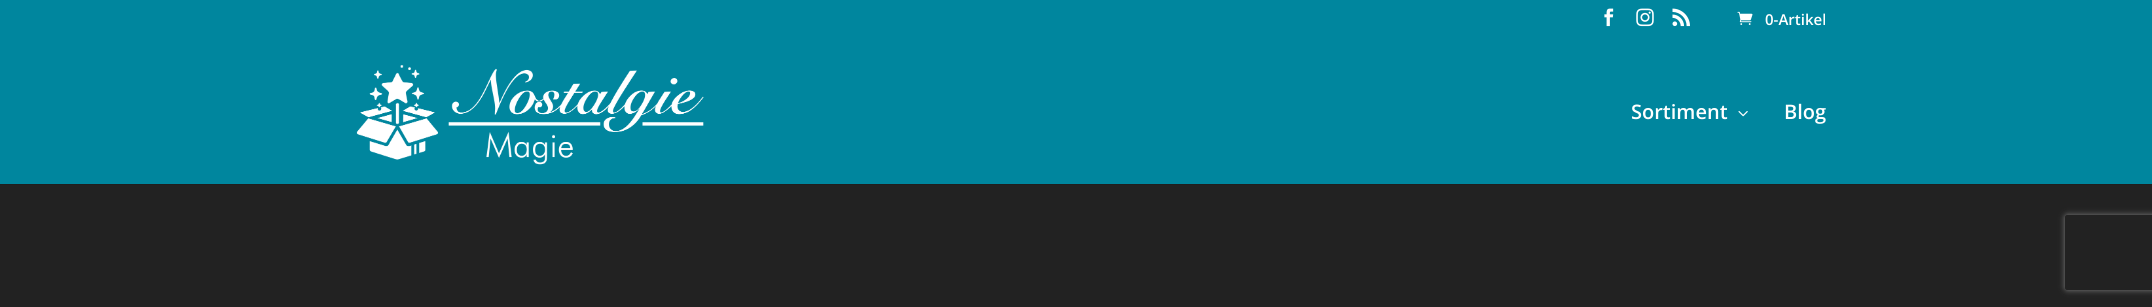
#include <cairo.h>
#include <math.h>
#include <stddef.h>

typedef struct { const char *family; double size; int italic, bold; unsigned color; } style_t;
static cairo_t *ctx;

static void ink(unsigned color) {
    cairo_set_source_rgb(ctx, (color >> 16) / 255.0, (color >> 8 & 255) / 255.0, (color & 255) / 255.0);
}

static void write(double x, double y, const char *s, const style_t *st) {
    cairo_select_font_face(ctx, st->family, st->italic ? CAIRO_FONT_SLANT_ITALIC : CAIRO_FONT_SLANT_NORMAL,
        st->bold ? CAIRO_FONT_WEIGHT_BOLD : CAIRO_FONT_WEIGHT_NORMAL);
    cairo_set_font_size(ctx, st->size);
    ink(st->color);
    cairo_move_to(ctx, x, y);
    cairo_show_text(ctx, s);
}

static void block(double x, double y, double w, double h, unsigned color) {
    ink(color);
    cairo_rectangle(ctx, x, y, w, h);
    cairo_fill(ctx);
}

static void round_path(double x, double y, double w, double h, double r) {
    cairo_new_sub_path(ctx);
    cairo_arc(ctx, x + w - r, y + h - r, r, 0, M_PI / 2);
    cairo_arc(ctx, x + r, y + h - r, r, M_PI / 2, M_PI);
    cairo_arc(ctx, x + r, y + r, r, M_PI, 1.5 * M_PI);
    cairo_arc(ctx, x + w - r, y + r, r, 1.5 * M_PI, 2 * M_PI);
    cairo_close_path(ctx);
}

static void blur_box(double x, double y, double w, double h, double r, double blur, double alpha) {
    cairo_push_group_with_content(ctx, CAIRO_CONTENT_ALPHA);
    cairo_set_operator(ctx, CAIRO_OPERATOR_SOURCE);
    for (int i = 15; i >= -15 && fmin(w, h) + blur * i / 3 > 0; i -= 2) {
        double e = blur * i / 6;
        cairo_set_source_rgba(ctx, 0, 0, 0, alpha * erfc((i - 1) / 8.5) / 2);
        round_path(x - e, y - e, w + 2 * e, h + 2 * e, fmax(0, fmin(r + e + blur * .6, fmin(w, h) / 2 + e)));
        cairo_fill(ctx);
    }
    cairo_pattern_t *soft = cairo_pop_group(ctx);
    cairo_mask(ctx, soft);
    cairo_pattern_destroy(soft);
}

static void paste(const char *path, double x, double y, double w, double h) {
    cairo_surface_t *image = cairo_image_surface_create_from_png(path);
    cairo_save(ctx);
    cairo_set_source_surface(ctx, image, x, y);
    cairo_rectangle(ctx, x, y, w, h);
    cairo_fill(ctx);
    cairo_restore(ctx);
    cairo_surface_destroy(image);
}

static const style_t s1 = {"Open Sans SemiBold", 15, 0, 0, 0xffffff};
static const style_t s2 = {"Open Sans SemiBold", 20, 0, 0, 0xffffff};

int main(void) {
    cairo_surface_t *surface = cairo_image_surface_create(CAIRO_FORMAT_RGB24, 2152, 307);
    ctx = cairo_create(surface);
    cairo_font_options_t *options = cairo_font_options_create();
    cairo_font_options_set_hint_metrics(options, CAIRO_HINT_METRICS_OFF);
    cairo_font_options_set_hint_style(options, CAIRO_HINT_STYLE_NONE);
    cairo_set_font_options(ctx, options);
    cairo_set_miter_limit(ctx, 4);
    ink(0x222222);
    cairo_paint(ctx);
    block(0, 0, 2152, 184, 0x00869e);
    paste("pic1.png", 1604, 8, 10, 19);
    paste("pic2.png", 1636, 8, 18, 19);
    paste("pic3.png", 1672, 8, 18, 19);
    paste("pic4.png", 1737, 11, 16, 14);
    write(1765, 25, "0-Artikel", &s1);
    ink(0x1f1f1f);
    cairo_new_path(ctx);
    cairo_move_to(ctx, 0, 184);
    cairo_line_to(ctx, 0, 185);
    cairo_line_to(ctx, 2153, 185);
    cairo_line_to(ctx, 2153, 43);
    cairo_line_to(ctx, 2152, 43);
    cairo_line_to(ctx, 2152, 184);
    cairo_close_path(ctx);
    cairo_fill(ctx);
    paste("pic5.png", 356, 65, 348, 100);
    write(1631, 119, "Sortiment", &s2);
    paste("pic6.png", 1738, 111, 10, 6);
    write(1784, 119, "Blog", &s2);
    cairo_save(ctx);
    cairo_set_fill_rule(ctx, CAIRO_FILL_RULE_EVEN_ODD);
    cairo_new_path(ctx);
    cairo_move_to(ctx, 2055, 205);
    cairo_line_to(ctx, 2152, 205);
    cairo_line_to(ctx, 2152, 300);
    cairo_line_to(ctx, 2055, 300);
    cairo_close_path(ctx);
    cairo_move_to(ctx, 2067.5, 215);
    cairo_line_to(ctx, 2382.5, 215);
    cairo_curve_to(ctx, 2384, 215, 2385, 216, 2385, 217.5);
    cairo_line_to(ctx, 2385, 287.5);
    cairo_curve_to(ctx, 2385, 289, 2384, 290, 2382.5, 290);
    cairo_line_to(ctx, 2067.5, 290);
    cairo_curve_to(ctx, 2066, 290, 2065, 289, 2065, 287.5);
    cairo_line_to(ctx, 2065, 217.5);
    cairo_curve_to(ctx, 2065, 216, 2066, 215, 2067.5, 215);
    cairo_close_path(ctx);
    cairo_clip(ctx);
    ink(0x808080);
    blur_box(2065, 215, 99, 75, 2.5, 3, 1);
    cairo_restore(ctx);
    cairo_surface_write_to_png(surface, "screenshot.png");
    cairo_font_options_destroy(options);
    cairo_destroy(ctx);
    cairo_surface_destroy(surface);
    return 0;
}
